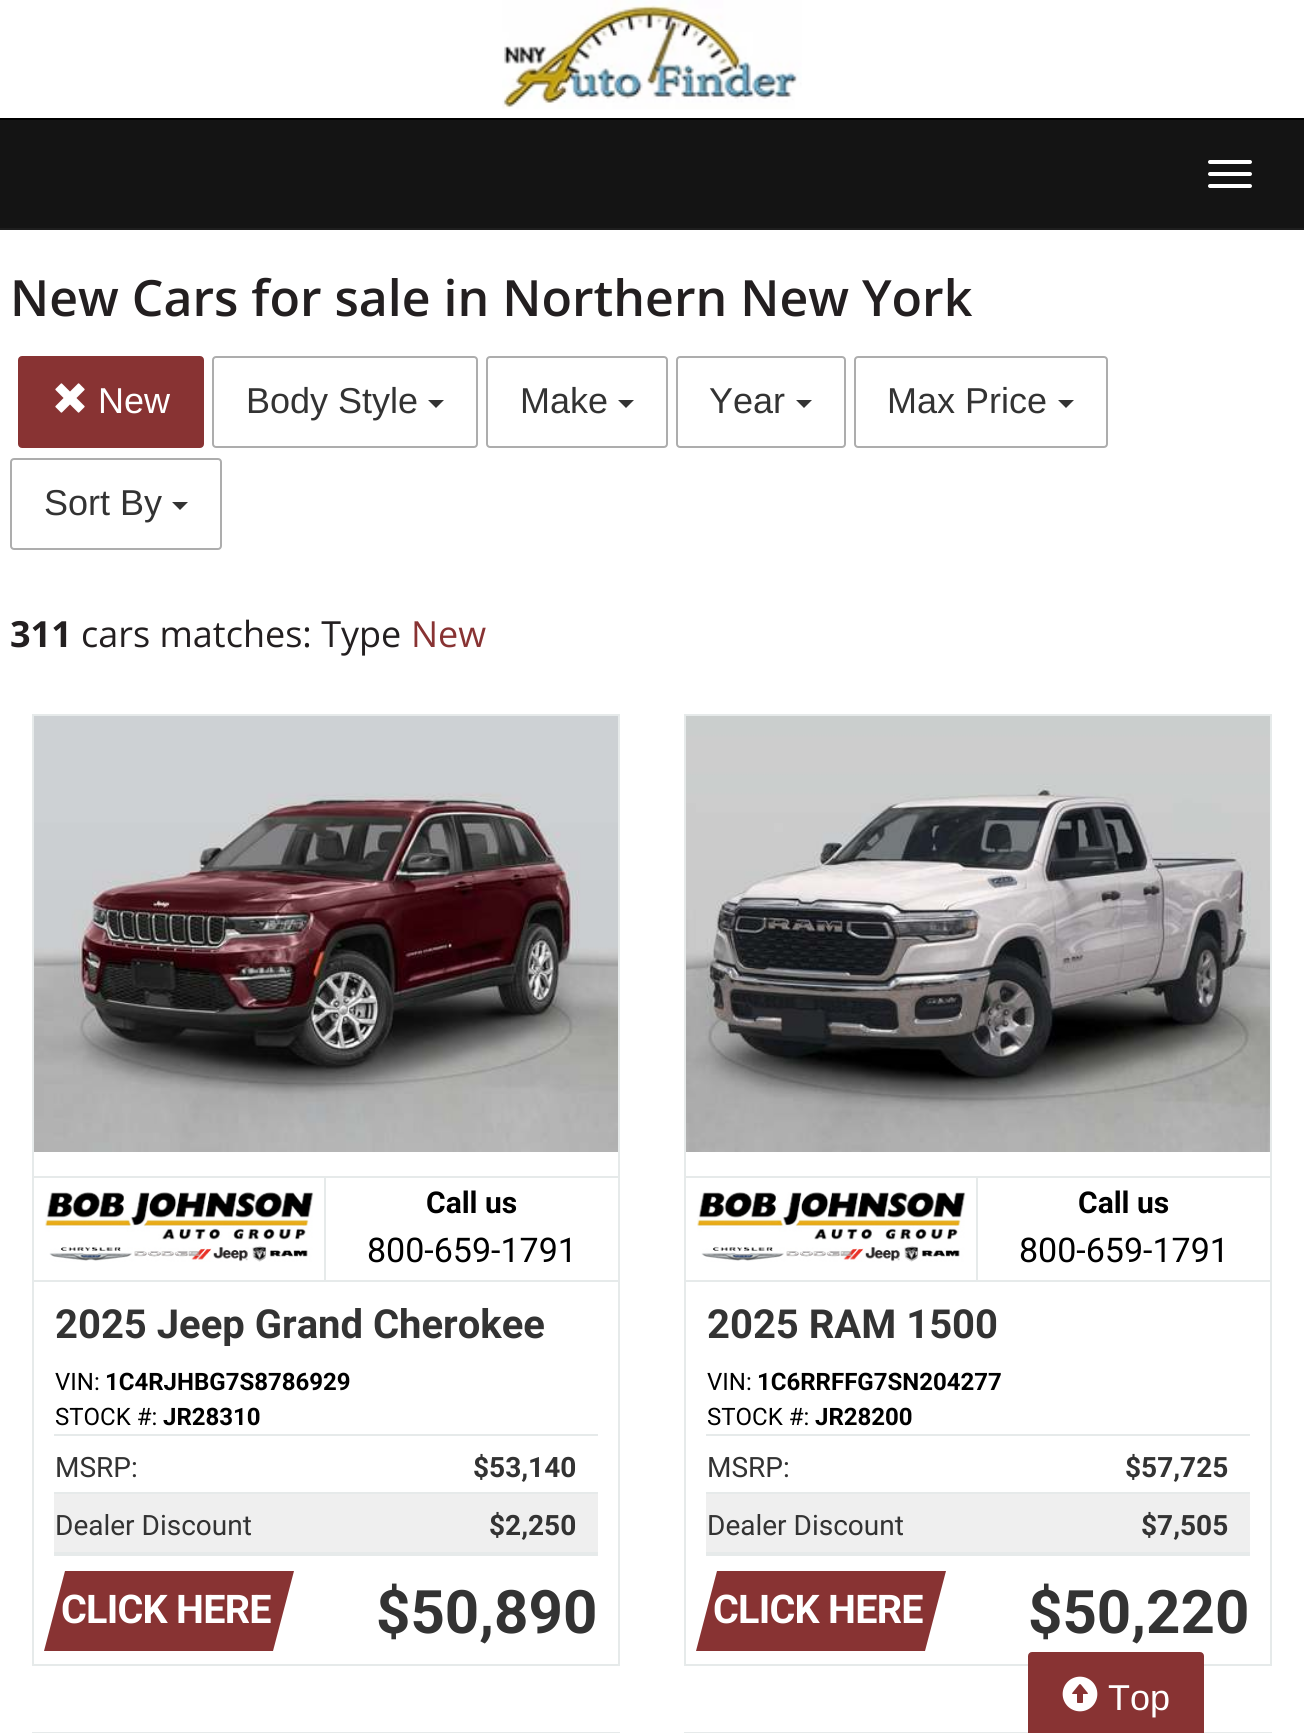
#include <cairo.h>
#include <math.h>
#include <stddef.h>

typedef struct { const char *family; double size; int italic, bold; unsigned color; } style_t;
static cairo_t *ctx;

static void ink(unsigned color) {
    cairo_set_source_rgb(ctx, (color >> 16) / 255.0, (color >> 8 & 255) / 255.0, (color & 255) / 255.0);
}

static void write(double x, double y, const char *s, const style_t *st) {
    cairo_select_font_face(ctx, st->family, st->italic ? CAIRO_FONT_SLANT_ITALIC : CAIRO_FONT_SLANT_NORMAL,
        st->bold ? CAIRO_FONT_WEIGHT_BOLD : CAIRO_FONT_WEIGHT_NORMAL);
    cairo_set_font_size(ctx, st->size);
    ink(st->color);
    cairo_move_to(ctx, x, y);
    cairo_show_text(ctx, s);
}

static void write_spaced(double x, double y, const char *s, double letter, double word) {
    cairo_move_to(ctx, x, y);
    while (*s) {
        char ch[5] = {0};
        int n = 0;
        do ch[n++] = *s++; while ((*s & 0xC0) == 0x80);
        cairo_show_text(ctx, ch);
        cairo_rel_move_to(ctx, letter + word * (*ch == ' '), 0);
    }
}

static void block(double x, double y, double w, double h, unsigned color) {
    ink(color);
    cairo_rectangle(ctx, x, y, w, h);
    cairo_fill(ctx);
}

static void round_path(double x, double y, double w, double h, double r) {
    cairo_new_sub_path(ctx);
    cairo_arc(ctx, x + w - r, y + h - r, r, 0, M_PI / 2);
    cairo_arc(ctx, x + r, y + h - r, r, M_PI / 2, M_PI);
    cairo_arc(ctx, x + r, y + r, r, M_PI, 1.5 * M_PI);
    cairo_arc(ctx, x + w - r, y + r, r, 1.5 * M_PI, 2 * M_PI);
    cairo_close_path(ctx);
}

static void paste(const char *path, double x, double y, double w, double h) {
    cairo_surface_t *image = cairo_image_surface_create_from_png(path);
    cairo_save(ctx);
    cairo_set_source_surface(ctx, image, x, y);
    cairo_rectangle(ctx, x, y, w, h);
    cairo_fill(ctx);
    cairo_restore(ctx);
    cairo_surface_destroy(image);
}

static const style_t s1 = {"Open Sans SemiBold", 50, 0, 0, 0x231f20};
static const style_t s2 = {"Liberation Sans", 36, 0, 0, 0xffffff};
static const style_t s3 = {"Liberation Sans", 36, 0, 0, 0x333333};
static const style_t s4 = {"Open Sans", 36, 0, 1, 0x231f20};
static const style_t s5 = {"Open Sans", 36, 0, 0, 0x231f20};
static const style_t s6 = {"Open Sans", 36, 0, 0, 0x883333};
static const style_t s7 = {"Roboto", 30, 0, 1, 0x000000};
static const style_t s8 = {"Roboto", 34, 0, 0, 0x000000};
static const style_t s9 = {"Roboto", 40, 0, 1, 0x333333};
static const style_t s10 = {"Roboto", 24, 0, 0, 0x000000};
static const style_t s11 = {"Roboto", 24, 0, 1, 0x000000};
static const style_t s12 = {"Roboto", 28, 0, 0, 0x333333};
static const style_t s13 = {"Roboto", 28, 0, 1, 0x333333};
static const style_t s14 = {"Roboto", 60, 0, 1, 0x333333};

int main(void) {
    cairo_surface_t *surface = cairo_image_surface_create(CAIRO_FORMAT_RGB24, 1304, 1733);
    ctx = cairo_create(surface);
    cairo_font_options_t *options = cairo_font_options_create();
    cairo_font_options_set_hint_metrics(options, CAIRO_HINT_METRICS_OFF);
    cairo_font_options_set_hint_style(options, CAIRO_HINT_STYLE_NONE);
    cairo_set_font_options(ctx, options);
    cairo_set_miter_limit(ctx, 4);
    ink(0xffffff);
    cairo_paint(ctx);
    block(0, 118, 1304, 2, 0x000000);
    paste("pic1.png", 502, 0, 300, 109);
    block(0, 120, 1304, 108, 0x141414);
    block(0, 228, 1304, 2, 0x1e1e1e);
    ink(0xffffff);
    round_path(1208, 160, 44, 4, 2);
    cairo_fill(ctx);
    round_path(1208, 172, 44, 4, 2);
    cairo_fill(ctx);
    round_path(1208, 184, 44, 4, 2);
    cairo_fill(ctx);
    write(10, 316, "New Cars for sale in Northern New York", &s1);
    ink(0x883333);
    round_path(19, 357, 184, 90, 3);
    cairo_fill_preserve(ctx);
    cairo_stroke(ctx);
    paste("pic2.png", 55, 383, 30, 30);
    write(98, 413, "New", &s2);
    round_path(213, 357, 264, 90, 3);
    ink(0xadadad);
    cairo_stroke(ctx);
    write(246, 413, "Body Style", &s3);
    cairo_new_path(ctx);
    cairo_move_to(ctx, 428, 400);
    cairo_line_to(ctx, 444, 400);
    cairo_line_to(ctx, 436, 408);
    cairo_close_path(ctx);
    cairo_fill(ctx);
    round_path(487, 357, 180, 90, 3);
    ink(0xadadad);
    cairo_stroke(ctx);
    write(520, 413, "Make", &s3);
    cairo_new_path(ctx);
    cairo_move_to(ctx, 618, 400);
    cairo_line_to(ctx, 634, 400);
    cairo_line_to(ctx, 626, 408);
    cairo_close_path(ctx);
    cairo_fill(ctx);
    round_path(677, 357, 168, 90, 3);
    ink(0xadadad);
    cairo_stroke(ctx);
    write(709, 413, "Year", &s3);
    cairo_new_path(ctx);
    cairo_move_to(ctx, 796, 400);
    cairo_line_to(ctx, 812, 400);
    cairo_line_to(ctx, 804, 408);
    cairo_close_path(ctx);
    cairo_fill(ctx);
    round_path(855, 357, 252, 90, 3);
    ink(0xadadad);
    cairo_stroke(ctx);
    write(887, 413, "Max Price", &s3);
    cairo_new_path(ctx);
    cairo_move_to(ctx, 1058, 400);
    cairo_line_to(ctx, 1074, 400);
    cairo_line_to(ctx, 1066, 408);
    cairo_close_path(ctx);
    cairo_fill(ctx);
    round_path(11, 459, 210, 90, 3);
    ink(0xadadad);
    cairo_stroke(ctx);
    write(44, 515, "Sort By", &s3);
    cairo_new_path(ctx);
    cairo_move_to(ctx, 172, 502);
    cairo_line_to(ctx, 188, 502);
    cairo_line_to(ctx, 180, 510);
    cairo_close_path(ctx);
    cairo_fill(ctx);
    write(10, 647, "311", &s4);
    write(81, 647, "cars matches: Type", &s5);
    write(411, 647, "New", &s6);
    cairo_rectangle(ctx, 33, 715, 586, 950);
    ink(0xe6eaea);
    cairo_stroke(ctx);
    paste("pic3.png", 34, 716, 584, 436);
    block(34, 1176, 584, 2, 0xe6eaea);
    block(324, 1176, 2, 106, 0xe6eaea);
    block(34, 1280, 584, 2, 0xe6eaea);
    paste("pic4.png", 45, 1192, 269, 70);
    write(426, 1213, "Call us", &s7);
    write(367, 1262, "800-659-1791", &s8);
    cairo_save(ctx);
    cairo_rectangle(ctx, 54, 1302, 490, 44);
    cairo_clip(ctx);
    write(55, 1338, "2025 Jeep Grand Cherokee", &s9);
    cairo_restore(ctx);
    write(55, 1390, "VIN:", &s10);
    write(105, 1390, "1C4RJHBG7S8786929", &s11);
    write(55, 1425, "STOCK #:", &s10);
    write(163, 1425, "JR28310", &s11);
    block(54, 1434, 544, 2, 0xe6eaea);
    block(54, 1492, 544, 2, 0xe6eaea);
    write(55, 1477, "MSRP:", &s12);
    write(473, 1477, "$53,140", &s13);
    block(54, 1494, 544, 58, 0xefefef);
    block(54, 1552, 544, 4, 0xe6eaea);
    write(55, 1535, "Dealer Discount", &s12);
    write(489, 1535, "$2,250", &s13);
    ink(0x883333);
    cairo_new_path(ctx);
    cairo_move_to(ctx, 65, 1571);
    cairo_line_to(ctx, 294, 1571);
    cairo_line_to(ctx, 273, 1651);
    cairo_line_to(ctx, 44, 1651);
    cairo_close_path(ctx);
    cairo_fill(ctx);
    cairo_set_font_size(ctx, 39.5);
    ink(0xffffff);
    write_spaced(61, 1623, "CLICK HERE", -0.75, 0);
    write(376, 1633, "$50,890", &s14);
    cairo_rectangle(ctx, 685, 715, 586, 950);
    ink(0xe6eaea);
    cairo_stroke(ctx);
    paste("pic5.png", 686, 716, 584, 436);
    block(686, 1176, 584, 2, 0xe6eaea);
    block(976, 1176, 2, 106, 0xe6eaea);
    block(686, 1280, 584, 2, 0xe6eaea);
    paste("pic4.png", 697, 1192, 269, 70);
    write(1078, 1213, "Call us", &s7);
    write(1019, 1262, "800-659-1791", &s8);
    write(707, 1338, "2025 RAM 1500", &s9);
    write(707, 1390, "VIN:", &s10);
    write(757, 1390, "1C6RRFFG7SN204277", &s11);
    write(707, 1425, "STOCK #:", &s10);
    write(815, 1425, "JR28200", &s11);
    block(706, 1434, 544, 2, 0xe6eaea);
    block(706, 1492, 544, 2, 0xe6eaea);
    write(707, 1477, "MSRP:", &s12);
    write(1125, 1477, "$57,725", &s13);
    block(706, 1494, 544, 58, 0xefefef);
    block(706, 1552, 544, 4, 0xe6eaea);
    write(707, 1535, "Dealer Discount", &s12);
    write(1141, 1535, "$7,505", &s13);
    ink(0x883333);
    cairo_new_path(ctx);
    cairo_move_to(ctx, 717, 1571);
    cairo_line_to(ctx, 946, 1571);
    cairo_line_to(ctx, 925, 1651);
    cairo_line_to(ctx, 696, 1651);
    cairo_close_path(ctx);
    cairo_fill(ctx);
    cairo_set_font_size(ctx, 39.5);
    ink(0xffffff);
    write_spaced(713, 1623, "CLICK HERE", -0.75, 0);
    write(1028, 1633, "$50,220", &s14);
    cairo_rectangle(ctx, 33, 1733, 586, 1);
    ink(0xe6eaea);
    cairo_stroke(ctx);
    cairo_rectangle(ctx, 685, 1733, 586, 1);
    cairo_stroke(ctx);
    ink(0x883333);
    round_path(1029, 1653, 174, 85, 3);
    cairo_fill_preserve(ctx);
    cairo_stroke(ctx);
    paste("pic6.png", 1062, 1676, 36, 36);
    write(1108, 1710, "Top", &s2);
    cairo_surface_write_to_png(surface, "screenshot.png");
    cairo_font_options_destroy(options);
    cairo_destroy(ctx);
    cairo_surface_destroy(surface);
    return 0;
}
